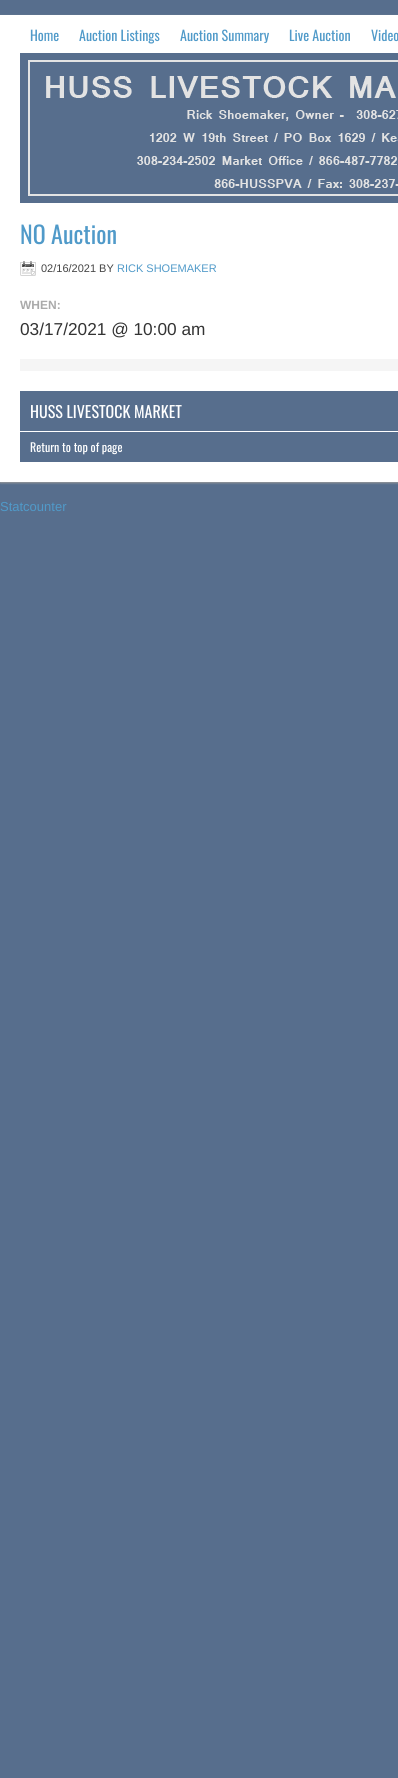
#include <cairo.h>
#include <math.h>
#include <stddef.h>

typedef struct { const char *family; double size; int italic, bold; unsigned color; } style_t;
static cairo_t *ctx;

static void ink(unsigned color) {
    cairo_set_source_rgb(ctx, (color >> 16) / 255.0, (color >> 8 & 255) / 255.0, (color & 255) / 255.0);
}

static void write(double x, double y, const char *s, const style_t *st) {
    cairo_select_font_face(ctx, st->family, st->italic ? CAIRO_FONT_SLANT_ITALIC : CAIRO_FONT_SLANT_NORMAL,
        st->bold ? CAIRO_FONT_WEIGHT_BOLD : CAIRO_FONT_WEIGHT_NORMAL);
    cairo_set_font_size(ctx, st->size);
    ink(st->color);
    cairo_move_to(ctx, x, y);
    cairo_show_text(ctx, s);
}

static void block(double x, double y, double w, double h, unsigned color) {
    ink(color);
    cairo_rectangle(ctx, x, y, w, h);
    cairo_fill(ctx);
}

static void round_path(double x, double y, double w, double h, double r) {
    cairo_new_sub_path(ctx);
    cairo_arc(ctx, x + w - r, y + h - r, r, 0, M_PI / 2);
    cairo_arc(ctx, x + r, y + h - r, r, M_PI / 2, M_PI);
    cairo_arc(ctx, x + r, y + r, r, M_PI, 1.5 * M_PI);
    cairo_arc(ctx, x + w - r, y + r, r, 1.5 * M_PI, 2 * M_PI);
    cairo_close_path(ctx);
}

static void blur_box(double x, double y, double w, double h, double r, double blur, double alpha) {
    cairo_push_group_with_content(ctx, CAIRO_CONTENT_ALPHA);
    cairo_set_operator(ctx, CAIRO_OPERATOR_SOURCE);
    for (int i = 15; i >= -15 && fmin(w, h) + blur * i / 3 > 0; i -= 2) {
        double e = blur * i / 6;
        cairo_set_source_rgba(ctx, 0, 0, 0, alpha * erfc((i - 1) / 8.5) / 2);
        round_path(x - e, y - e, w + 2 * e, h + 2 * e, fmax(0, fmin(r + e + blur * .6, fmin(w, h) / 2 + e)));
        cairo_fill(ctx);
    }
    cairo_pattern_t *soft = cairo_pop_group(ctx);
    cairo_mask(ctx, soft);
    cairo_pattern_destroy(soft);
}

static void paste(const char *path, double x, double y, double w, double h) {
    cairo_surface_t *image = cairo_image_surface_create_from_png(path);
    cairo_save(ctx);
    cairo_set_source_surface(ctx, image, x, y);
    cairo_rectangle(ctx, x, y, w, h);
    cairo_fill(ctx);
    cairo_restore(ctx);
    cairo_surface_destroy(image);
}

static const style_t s1 = {"Oswald", 14, 0, 0, 0x509ac9};
static const style_t s2 = {"Oswald", 24, 0, 0, 0x509ac9};
static const style_t s3 = {"Liberation Sans", 11, 0, 0, 0x444444};
static const style_t s4 = {"Liberation Sans", 11, 0, 0, 0x509ac9};
static const style_t s5 = {"Liberation Sans", 12, 0, 1, 0xaaaaaa};
static const style_t s6 = {"Liberation Sans", 17.25, 0, 0, 0x333333};
static const style_t s7 = {"Oswald", 16, 0, 0, 0xffffff};
static const style_t s8 = {"Oswald", 12, 0, 0, 0xffffff};
static const style_t s9 = {"Liberation Sans", 13, 0, 0, 0x509ac9};

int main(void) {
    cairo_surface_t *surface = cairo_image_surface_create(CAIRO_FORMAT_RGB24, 398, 1778);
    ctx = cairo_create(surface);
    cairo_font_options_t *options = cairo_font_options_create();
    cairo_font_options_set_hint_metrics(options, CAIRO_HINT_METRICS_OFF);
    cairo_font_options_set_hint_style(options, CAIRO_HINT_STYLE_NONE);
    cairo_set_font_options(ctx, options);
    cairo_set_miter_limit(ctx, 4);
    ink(0x576e8d);
    cairo_paint(ctx);
    ink(0x999999);
    blur_box(0, 16, 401, 467, 0, 1, 1);
    block(0, 15, 398, 467, 0xffffff);
    write(30, 41, "Home", &s1);
    write(79, 41, "Auction Listings", &s1);
    write(180, 41, "Auction Summary", &s1);
    write(289, 41, "Live Auction", &s1);
    write(371, 41, "Video", &s1);
    paste("pic1.png", 20, 53, 378, 150);
    write(20, 244, "NO Auction", &s2);
    paste("pic2.png", 20, 261, 16, 15);
    write(41, 272, "02/16/2021 BY", &s3);
    write(117, 272, "RICK SHOEMAKER", &s4);
    write(20, 309, "WHEN:", &s5);
    write(20, 335, "03/17/2021 @ 10:00 am", &s6);
    block(20, 359, 378, 12, 0xf5f5f5);
    block(20, 391, 378, 40, 0x576e8d);
    write(30, 418, "HUSS LIVESTOCK MARKET", &s7);
    block(20, 432, 378, 30, 0x576e8d);
    write(30, 452, "Return to top of page", &s8);
    write(0, 511, "Statcounter", &s9);
    cairo_surface_write_to_png(surface, "screenshot.png");
    cairo_font_options_destroy(options);
    cairo_destroy(ctx);
    cairo_surface_destroy(surface);
    return 0;
}
